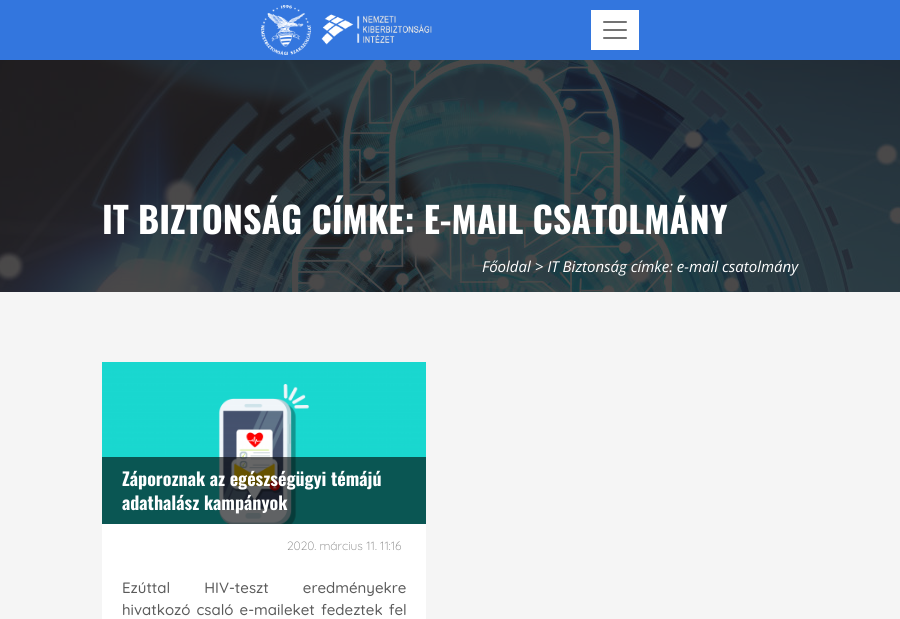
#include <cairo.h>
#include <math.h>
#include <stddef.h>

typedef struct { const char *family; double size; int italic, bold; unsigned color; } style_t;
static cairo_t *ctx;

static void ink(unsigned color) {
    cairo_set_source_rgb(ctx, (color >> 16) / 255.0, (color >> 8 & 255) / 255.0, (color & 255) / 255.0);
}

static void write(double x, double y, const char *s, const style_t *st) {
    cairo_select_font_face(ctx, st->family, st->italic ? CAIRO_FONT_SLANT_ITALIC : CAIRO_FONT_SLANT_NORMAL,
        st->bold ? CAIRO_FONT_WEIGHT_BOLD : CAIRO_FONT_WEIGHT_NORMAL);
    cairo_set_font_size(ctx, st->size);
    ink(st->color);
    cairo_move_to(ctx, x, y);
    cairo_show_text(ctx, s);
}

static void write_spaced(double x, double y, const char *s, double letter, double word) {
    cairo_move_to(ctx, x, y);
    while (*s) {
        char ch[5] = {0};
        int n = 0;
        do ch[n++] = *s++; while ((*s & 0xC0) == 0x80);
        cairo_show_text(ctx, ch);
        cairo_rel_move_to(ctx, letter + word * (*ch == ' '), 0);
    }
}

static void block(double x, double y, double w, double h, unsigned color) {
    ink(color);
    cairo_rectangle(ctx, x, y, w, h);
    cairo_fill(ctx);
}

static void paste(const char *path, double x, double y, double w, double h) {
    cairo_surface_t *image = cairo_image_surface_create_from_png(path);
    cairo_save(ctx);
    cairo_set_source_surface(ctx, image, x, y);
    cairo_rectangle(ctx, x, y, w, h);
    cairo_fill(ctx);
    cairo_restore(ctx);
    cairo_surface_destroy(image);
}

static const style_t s1 = {"Oswald", 36, 0, 1, 0xffffff};
static const style_t s2 = {"Open Sans", 15, 1, 0, 0xffffff};
static const style_t s3 = {"Oswald", 18, 0, 1, 0xffffff};
static const style_t s4 = {"Quicksand Light", 12, 0, 0, 0x808080};

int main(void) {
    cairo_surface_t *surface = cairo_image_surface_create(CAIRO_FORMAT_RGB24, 900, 619);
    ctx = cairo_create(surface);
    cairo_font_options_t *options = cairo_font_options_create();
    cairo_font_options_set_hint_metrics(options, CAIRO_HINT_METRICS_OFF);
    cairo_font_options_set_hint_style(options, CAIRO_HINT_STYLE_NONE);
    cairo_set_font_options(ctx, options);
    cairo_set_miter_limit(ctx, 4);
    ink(0xffffff);
    cairo_paint(ctx);
    block(0, 0, 900, 60, 0x3376de);
    paste("pic1.png", 261, 5, 171, 50);
    block(591, 10, 48, 40, 0xffffff);
    paste("pic2.png", 603, 21, 24, 18);
    paste("pic3.png", 0, 60, 900, 232);
    write(102, 234, "IT BIZTONSÁG CÍMKE: E-MAIL CSATOLMÁNY", &s1);
    write(482, 272, "Főoldal > IT Biztonság címke: e-mail csatolmány", &s2);
    block(0, 292, 900, 327, 0xf5f5f5);
    block(102, 524, 324, 95, 0xffffff);
    paste("pic4.png", 102, 362, 324, 162);
    cairo_set_source_rgba(ctx, 0, 0, 0, 0.6);
    cairo_rectangle(ctx, 102, 457, 324, 67);
    cairo_fill(ctx);
    write(122, 486, "Záporoznak az egészségügyi témájú", &s3);
    write(122, 510, "adathalász kampányok", &s3);
    write(287, 550, "2020. március 11. 11:16", &s4);
    cairo_select_font_face(ctx, "Quicksand Medium", CAIRO_FONT_SLANT_NORMAL, CAIRO_FONT_WEIGHT_NORMAL);
    cairo_set_font_size(ctx, 15);
    ink(0x5a5a5a);
    write_spaced(122, 593, "Ezúttal HIV-teszt eredményekre", 0, 30);
    write_spaced(122, 615, "hivatkozó csaló e-maileket fedeztek fel", 0, 2);
    cairo_surface_write_to_png(surface, "screenshot.png");
    cairo_font_options_destroy(options);
    cairo_destroy(ctx);
    cairo_surface_destroy(surface);
    return 0;
}
